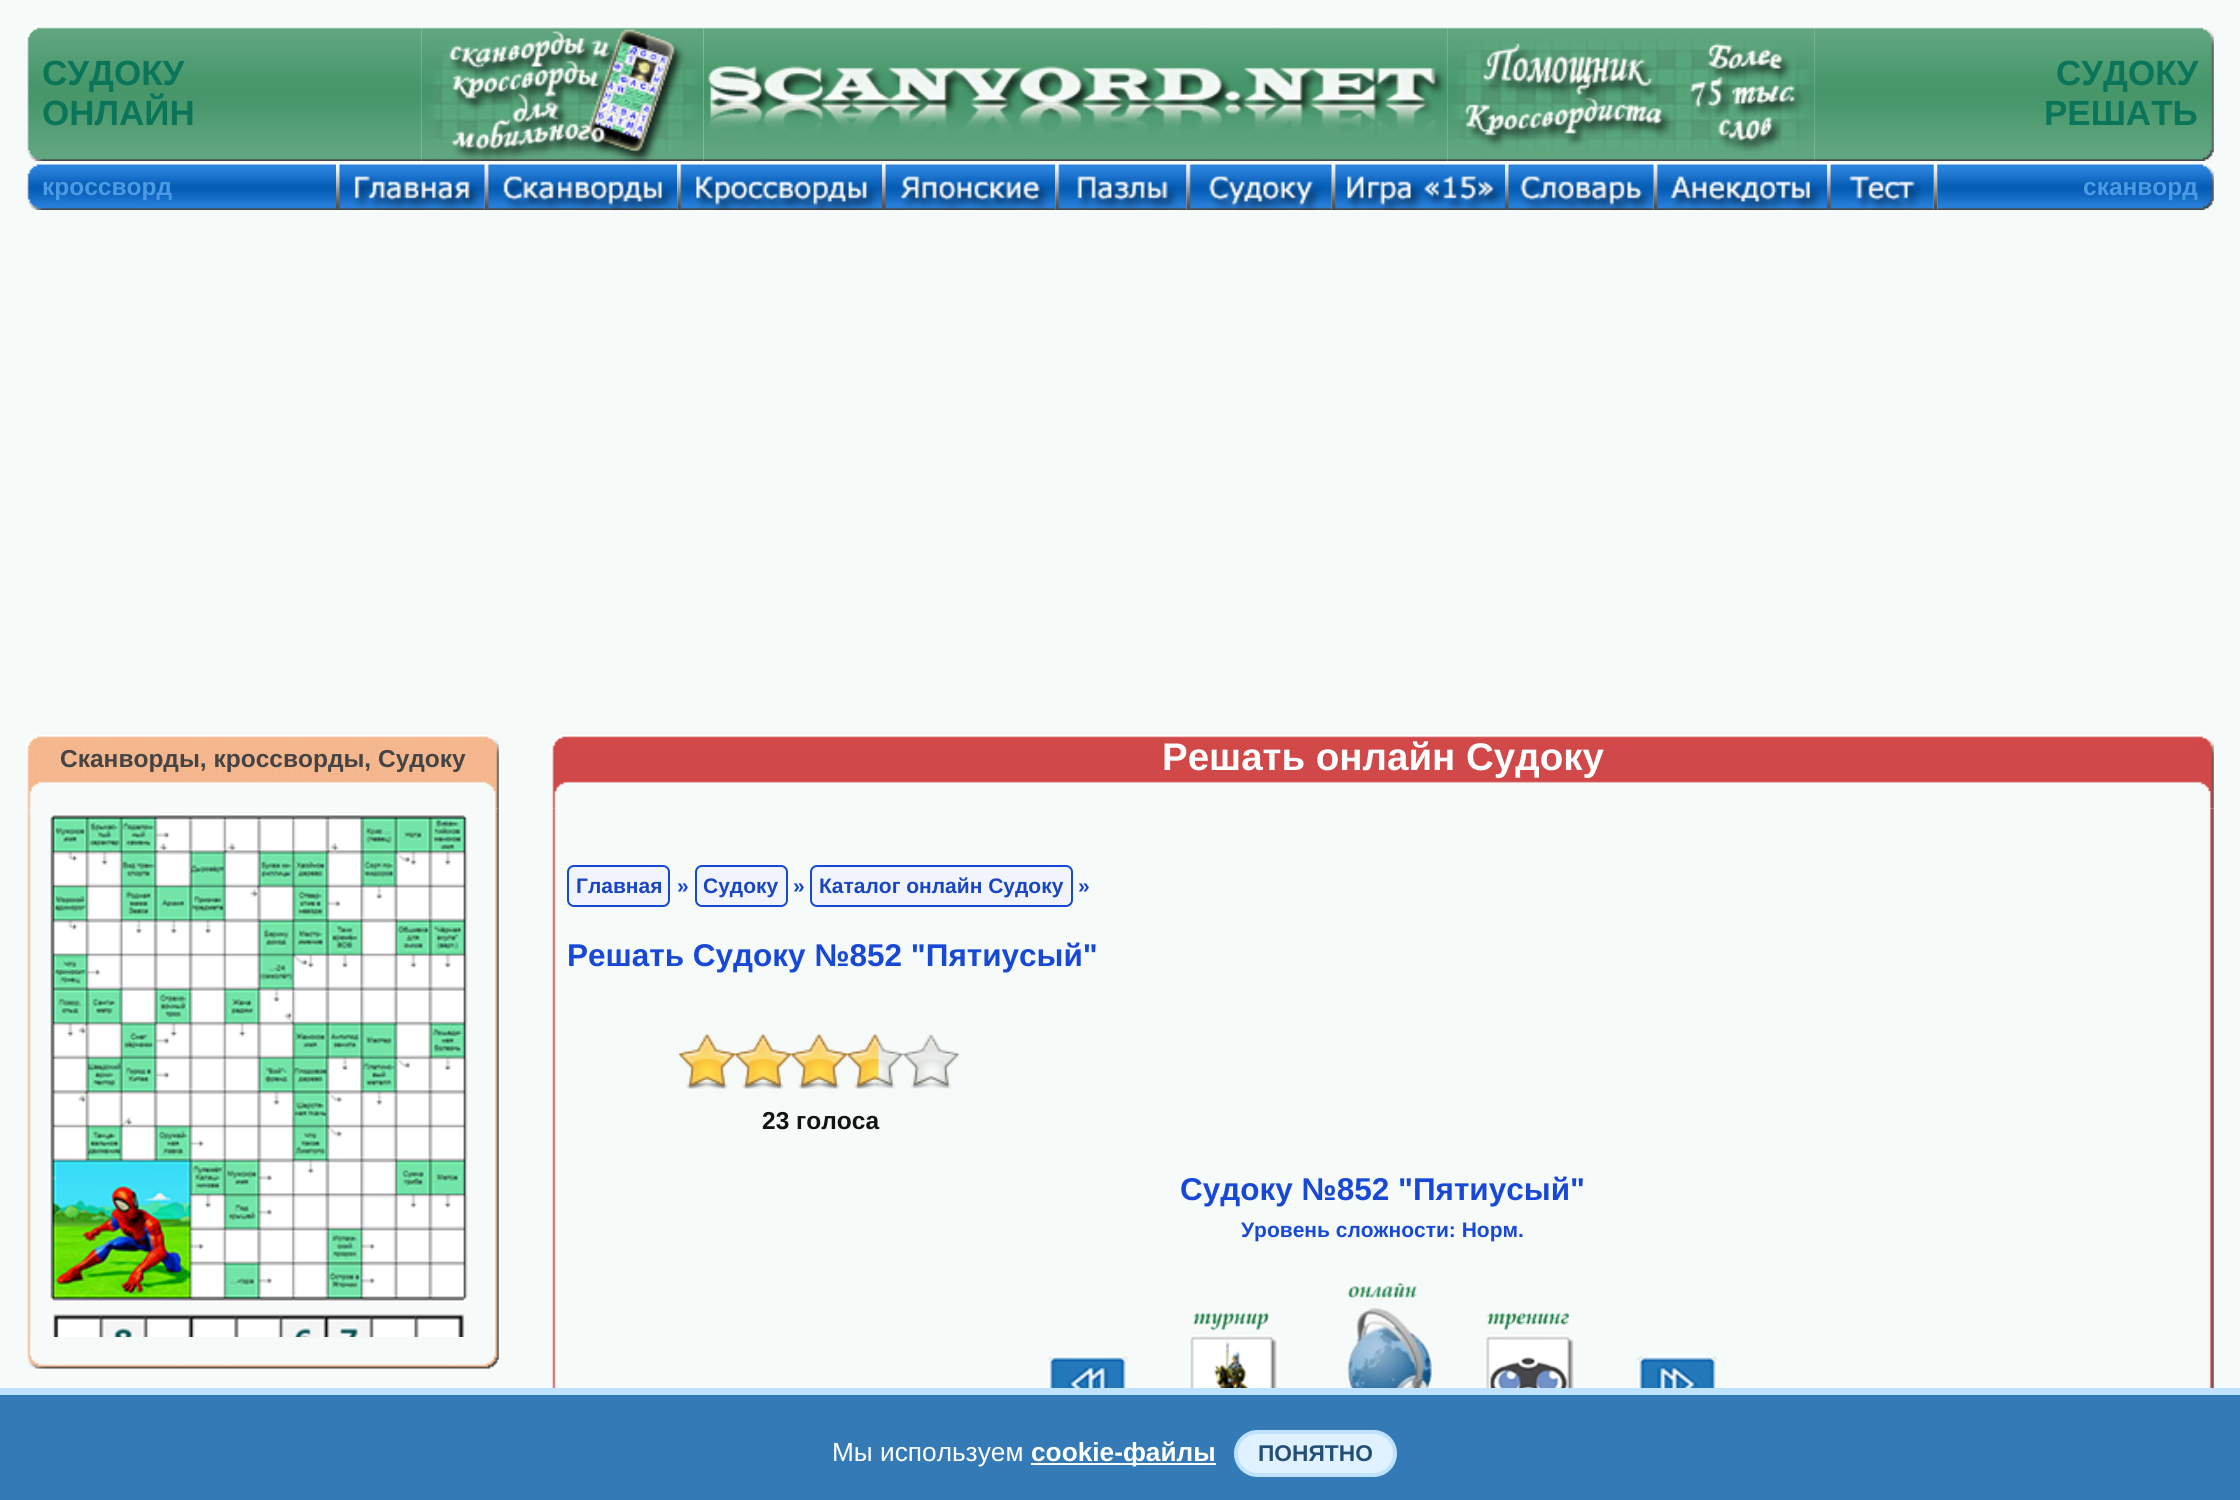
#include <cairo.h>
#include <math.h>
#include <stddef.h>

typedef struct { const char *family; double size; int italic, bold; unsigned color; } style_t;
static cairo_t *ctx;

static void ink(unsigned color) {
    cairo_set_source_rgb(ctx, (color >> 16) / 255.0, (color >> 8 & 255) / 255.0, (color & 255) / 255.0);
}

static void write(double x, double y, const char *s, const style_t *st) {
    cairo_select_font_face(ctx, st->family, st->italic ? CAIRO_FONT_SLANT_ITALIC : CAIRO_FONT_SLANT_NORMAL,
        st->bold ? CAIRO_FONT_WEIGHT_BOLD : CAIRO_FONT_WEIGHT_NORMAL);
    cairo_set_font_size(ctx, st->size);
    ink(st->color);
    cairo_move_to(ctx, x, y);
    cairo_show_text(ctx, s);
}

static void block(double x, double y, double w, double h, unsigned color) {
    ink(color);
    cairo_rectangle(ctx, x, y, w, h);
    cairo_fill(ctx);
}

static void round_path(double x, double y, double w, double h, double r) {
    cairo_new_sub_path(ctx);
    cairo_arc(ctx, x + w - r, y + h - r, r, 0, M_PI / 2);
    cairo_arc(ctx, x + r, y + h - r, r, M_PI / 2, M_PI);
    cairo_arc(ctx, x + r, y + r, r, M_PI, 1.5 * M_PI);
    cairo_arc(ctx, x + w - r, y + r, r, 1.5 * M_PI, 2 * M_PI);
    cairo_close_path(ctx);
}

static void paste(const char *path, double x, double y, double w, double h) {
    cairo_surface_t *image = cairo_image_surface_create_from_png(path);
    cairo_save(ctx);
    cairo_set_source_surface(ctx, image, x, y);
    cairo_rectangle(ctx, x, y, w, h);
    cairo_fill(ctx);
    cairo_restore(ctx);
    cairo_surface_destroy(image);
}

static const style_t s1 = {"Liberation Sans", 35, 0, 1, 0x0a7558};
static const style_t s2 = {"Liberation Sans", 24.5, 0, 1, 0x4b9ae4};
static const style_t s3 = {"Liberation Sans", 24.5, 0, 1, 0x444444};
static const style_t s4 = {"Liberation Sans", 38.5, 0, 1, 0xffffff};
static const style_t s5 = {"Liberation Sans", 21, 0, 1, 0x1945c2};
static const style_t s6 = {"Liberation Sans", 21, 0, 1, 0x1849d6};
static const style_t s7 = {"Liberation Sans", 31.5, 0, 1, 0x1849d6};
static const style_t s8 = {"Liberation Sans", 24.5, 0, 1, 0x131313};
static const style_t s9 = {"Liberation Sans", 26.25, 0, 0, 0xffffff};
static const style_t s10 = {"Liberation Sans", 26.25, 0, 1, 0xffffff};
static const style_t s11 = {"Liberation Sans", 22.75, 0, 1, 0x214f77};

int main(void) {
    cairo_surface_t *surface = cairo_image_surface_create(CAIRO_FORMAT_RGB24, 2240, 1500);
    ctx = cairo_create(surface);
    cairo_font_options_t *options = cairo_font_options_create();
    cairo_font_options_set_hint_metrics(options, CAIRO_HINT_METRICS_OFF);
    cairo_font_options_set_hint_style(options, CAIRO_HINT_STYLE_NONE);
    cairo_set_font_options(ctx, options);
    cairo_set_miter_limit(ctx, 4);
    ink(0xf6faf8);
    cairo_paint(ctx);
    paste("pic1.png", 26, 26, 16, 135);
    paste("pic2.png", 42, 26, 380, 135);
    write(42, 85, "СУДОКУ", &s1);
    write(42, 125, "ОНЛАЙН", &s1);
    paste("pic3.png", 421, 26, 283, 135);
    paste("pic4.png", 703, 26, 745, 135);
    paste("pic6.png", 1814, 26, 384, 135);
    paste("pic5.png", 1447, 26, 368, 135);
    paste("pic7.png", 2198, 26, 16, 135);
    write(2056, 85, "СУДОКУ", &s1);
    write(2044, 125, "РЕШАТЬ", &s1);
    paste("pic8.png", 26, 163, 16, 47);
    paste("pic9.png", 42, 163, 294, 47);
    write(42, 195, "кроссворд", &s2);
    paste("pic10.png", 336, 163, 149, 47);
    paste("pic11.png", 484, 163, 194, 47);
    paste("pic12.png", 677, 163, 205, 47);
    paste("pic13.png", 882, 163, 174, 47);
    paste("pic14.png", 1055, 163, 132, 47);
    paste("pic15.png", 1186, 163, 146, 47);
    paste("pic16.png", 1331, 163, 174, 47);
    paste("pic17.png", 1505, 163, 149, 47);
    paste("pic18.png", 1653, 163, 174, 47);
    paste("pic20.png", 1933, 163, 5, 47);
    paste("pic19.png", 1827, 163, 107, 47);
    paste("pic21.png", 1937, 163, 261, 47);
    write(2083, 195, "сканворд", &s2);
    paste("pic22.png", 2198, 163, 16, 47);
    paste("pic23.png", 26, 735, 473, 74);
    write(60, 767, "Сканворды, кроссворды, Судоку", &s3);
    paste("pic24.png", 27, 808, 472, 529);
    paste("pic25.png", 49, 814, 420, 488);
    paste("pic26.png", 51, 1314, 414, 23);
    paste("pic27.png", 27, 1337, 472, 32);
    paste("pic28.png", 551, 735, 16, 74);
    paste("pic29.png", 567, 735, 1631, 48);
    write(1162, 770, "Решать онлайн Судоку", &s4);
    paste("pic30.png", 2198, 735, 16, 74);
    paste("pic31.png", 552, 808, 4, 580);
    ink(0xf1f5fb);
    round_path(568, 866, 101, 40, 6);
    cairo_fill_preserve(ctx);
    ink(0x1849d6);
    cairo_stroke(ctx);
    write(576, 893, "Главная", &s5);
    write(677, 893, "»", &s6);
    ink(0xf1f5fb);
    round_path(696, 866, 91, 40, 6);
    cairo_fill_preserve(ctx);
    ink(0x1849d6);
    cairo_stroke(ctx);
    write(703, 893, "Судоку", &s5);
    write(793, 893, "»", &s6);
    ink(0xf1f5fb);
    round_path(811, 866, 261, 40, 6);
    cairo_fill_preserve(ctx);
    ink(0x1849d6);
    cairo_stroke(ctx);
    write(819, 893, "Каталог онлайн Судоку", &s5);
    write(1078, 893, "»", &s6);
    write(567, 966, "Решать Судоку №852 \"Пятиусый\"", &s7);
    paste("pic32.png", 679, 1034, 280, 55);
    paste("pic33.png", 679, 1034, 200, 55);
    write(762, 1129, "23 голоса", &s8);
    write(1180, 1200, "Судоку №852 \"Пятиусый\"", &s7);
    write(1241, 1237, "Уровень сложности: Норм.", &s6);
    paste("pic34.png", 1048, 1356, 80, 32);
    paste("pic35.png", 1189, 1311, 90, 77);
    paste("pic36.png", 1335, 1282, 98, 106);
    paste("pic37.png", 1485, 1311, 89, 77);
    paste("pic38.png", 1637, 1356, 80, 32);
    paste("pic39.png", 2209, 808, 5, 580);
    block(0, 1395, 2240, 105, 0x337ab7);
    block(0, 1388, 2240, 7, 0xbfe2ff);
    write(832, 1461, "Мы используем", &s9);
    block(1031, 1463, 185, 2, 0xffffff);
    write(1031, 1461, "cookie-файлы", &s10);
    ink(0xe0f1ff);
    round_path(1236, 1432, 159, 43, 21.5);
    cairo_fill_preserve(ctx);
    ink(0xbfe2ff);
    cairo_set_line_width(ctx, 4);
    cairo_stroke(ctx);
    write(1258, 1461, "ПОНЯТНО", &s11);
    cairo_surface_write_to_png(surface, "screenshot.png");
    cairo_font_options_destroy(options);
    cairo_destroy(ctx);
    cairo_surface_destroy(surface);
    return 0;
}
